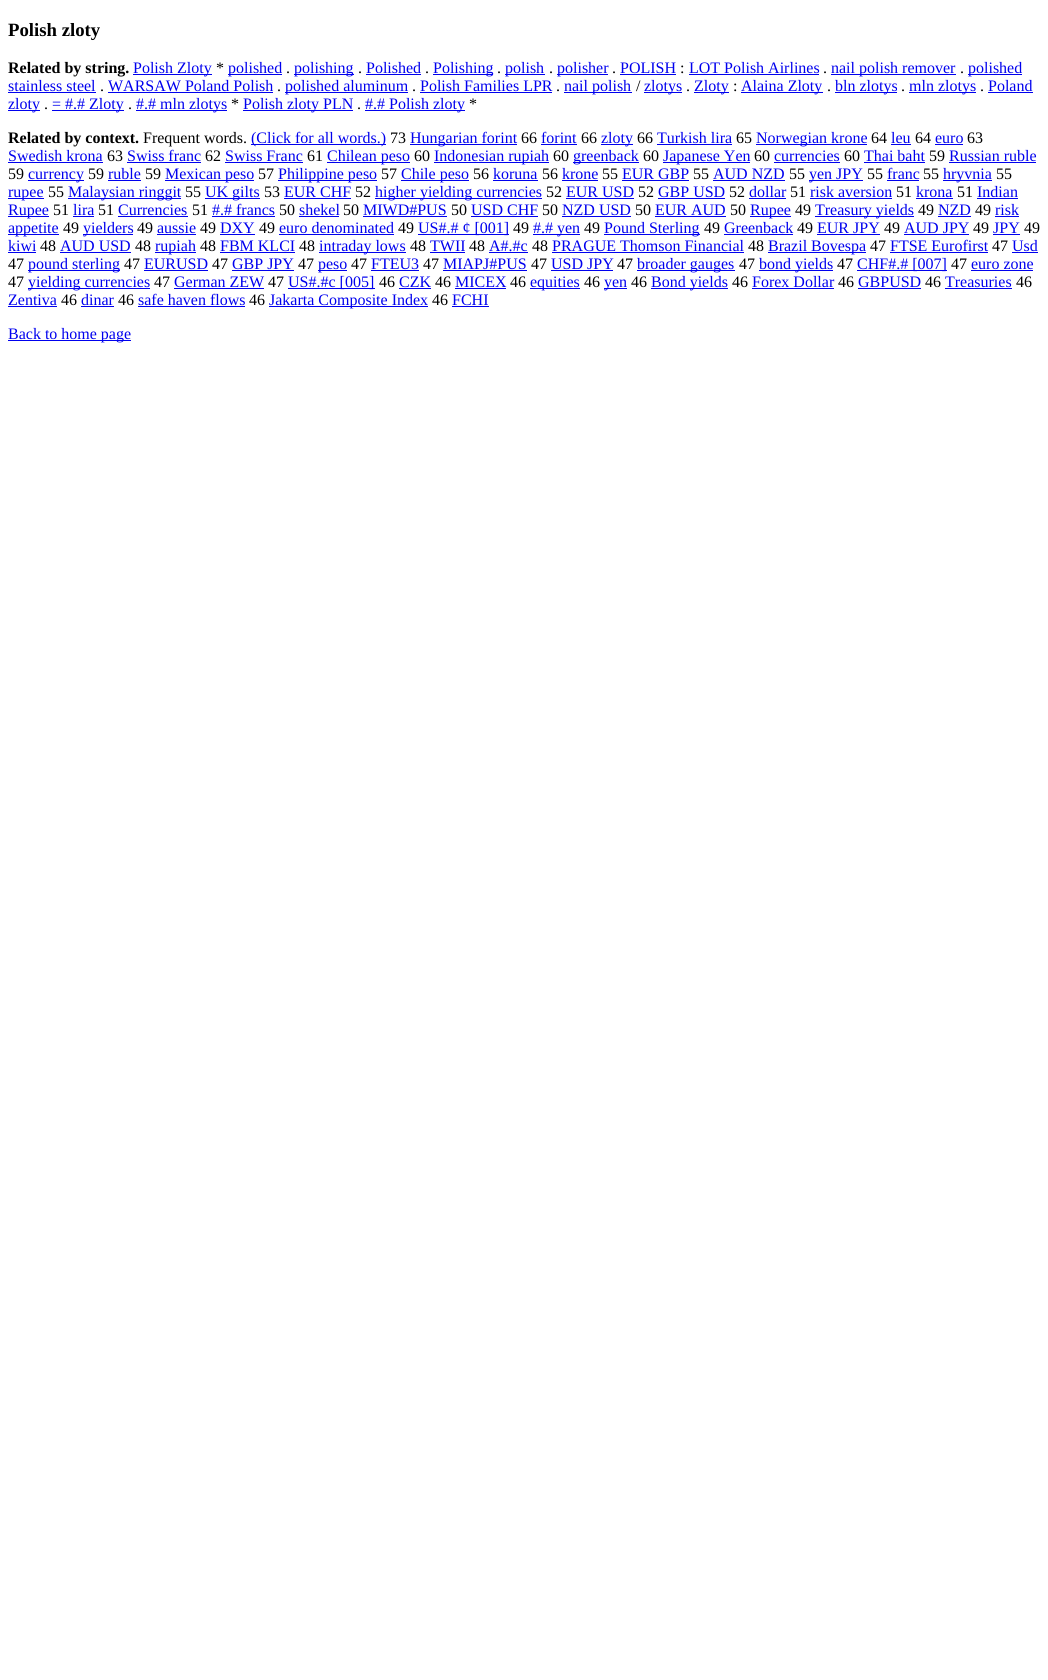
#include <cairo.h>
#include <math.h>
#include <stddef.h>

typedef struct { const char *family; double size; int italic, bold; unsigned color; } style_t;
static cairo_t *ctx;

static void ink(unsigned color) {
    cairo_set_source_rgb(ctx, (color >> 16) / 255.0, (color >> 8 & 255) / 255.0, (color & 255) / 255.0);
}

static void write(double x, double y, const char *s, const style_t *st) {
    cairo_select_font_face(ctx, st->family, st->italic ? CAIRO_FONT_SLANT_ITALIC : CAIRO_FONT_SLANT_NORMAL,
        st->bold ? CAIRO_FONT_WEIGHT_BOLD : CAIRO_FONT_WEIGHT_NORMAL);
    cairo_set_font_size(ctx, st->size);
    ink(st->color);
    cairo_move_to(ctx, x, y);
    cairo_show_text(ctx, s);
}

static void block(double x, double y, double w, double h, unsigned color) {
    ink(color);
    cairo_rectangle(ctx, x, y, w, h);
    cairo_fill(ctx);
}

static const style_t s1 = {"Liberation Serif", 18.75, 0, 1, 0x000000};
static const style_t s2 = {"Liberation Serif", 16, 0, 1, 0x000000};
static const style_t s3 = {"Liberation Serif", 16, 0, 0, 0x0000ee};
static const style_t s4 = {"Liberation Serif", 16, 0, 0, 0x000000};

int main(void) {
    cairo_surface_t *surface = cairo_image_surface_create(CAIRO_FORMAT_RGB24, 1048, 1680);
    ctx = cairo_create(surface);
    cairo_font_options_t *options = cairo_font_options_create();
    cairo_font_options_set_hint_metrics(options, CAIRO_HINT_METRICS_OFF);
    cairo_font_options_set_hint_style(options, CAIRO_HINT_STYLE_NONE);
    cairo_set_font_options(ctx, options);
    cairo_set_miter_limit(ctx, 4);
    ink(0xffffff);
    cairo_paint(ctx);
    write(8, 36, "Polish zloty", &s1);
    write(8, 73, "Related by string.", &s2);
    block(133, 74, 79, 1, 0x0000ee);
    write(133, 73, "Polish Zloty", &s3);
    write(216, 73, "*", &s4);
    block(228, 74, 54, 1, 0x0000ee);
    write(228, 73, "polished", &s3);
    write(286, 73, ".", &s4);
    block(294, 74, 60, 1, 0x0000ee);
    write(294, 73, "polishing", &s3);
    write(358, 73, ".", &s4);
    write(366, 73, "Polished", &s3);
    block(366, 74, 55, 1, 0x0000ee);
    write(425, 73, ".", &s4);
    block(433, 74, 60, 1, 0x0000ee);
    write(433, 73, "Polishing", &s3);
    write(497, 73, ".", &s4);
    block(505, 74, 40, 1, 0x0000ee);
    write(505, 73, "polish", &s3);
    write(549, 73, ".", &s4);
    block(557, 74, 51, 1, 0x0000ee);
    write(557, 73, "polisher", &s3);
    write(612, 73, ".", &s4);
    write(620, 73, "POLISH", &s3);
    block(620, 74, 56, 1, 0x0000ee);
    write(680, 73, ":", &s4);
    write(689, 73, "LOT Polish Airlines", &s3);
    block(689, 74, 130, 1, 0x0000ee);
    write(823, 73, ".", &s4);
    block(831, 74, 125, 1, 0x0000ee);
    write(831, 73, "nail polish remover", &s3);
    write(960, 73, ".", &s4);
    block(968, 74, 54, 1, 0x0000ee);
    write(968, 73, "polished", &s3);
    write(8, 91, "stainless steel", &s3);
    block(8, 92, 88, 1, 0x0000ee);
    write(100, 91, ".", &s4);
    write(108, 91, "WARSAW Poland Polish", &s3);
    block(108, 92, 165, 1, 0x0000ee);
    write(277, 91, ".", &s4);
    block(285, 92, 123, 1, 0x0000ee);
    write(285, 91, "polished aluminum", &s3);
    write(412, 91, ".", &s4);
    write(420, 91, "Polish Families LPR", &s3);
    block(420, 92, 132, 1, 0x0000ee);
    write(556, 91, ".", &s4);
    block(564, 92, 68, 1, 0x0000ee);
    write(564, 91, "nail polish", &s3);
    write(636, 91, "/", &s4);
    block(644, 92, 38, 1, 0x0000ee);
    write(644, 91, "zlotys", &s3);
    write(686, 91, ".", &s4);
    block(694, 92, 35, 1, 0x0000ee);
    write(694, 91, "Zloty", &s3);
    write(733, 91, ":", &s4);
    block(741, 92, 82, 1, 0x0000ee);
    write(741, 91, "Alaina Zloty", &s3);
    write(827, 91, ".", &s4);
    block(835, 92, 62, 1, 0x0000ee);
    write(835, 91, "bln zlotys", &s3);
    write(901, 91, ".", &s4);
    block(909, 92, 67, 1, 0x0000ee);
    write(909, 91, "mln zlotys", &s3);
    write(980, 91, ".", &s4);
    write(988, 91, "Poland", &s3);
    block(988, 92, 45, 1, 0x0000ee);
    block(8, 110, 32, 1, 0x0000ee);
    write(8, 109, "zloty", &s3);
    block(52, 110, 72, 1, 0x0000ee);
    write(52, 109, "= #.# Zloty", &s3);
    block(136, 110, 91, 1, 0x0000ee);
    write(136, 109, "#.# mln zlotys", &s3);
    write(231, 109, "*", &s4);
    block(243, 110, 110, 1, 0x0000ee);
    write(243, 109, "Polish zloty PLN", &s3);
    block(365, 110, 100, 1, 0x0000ee);
    write(365, 109, "#.# Polish zloty", &s3);
    write(469, 109, "*", &s4);
    write(44, 109, ".", &s4);
    write(128, 109, ".", &s4);
    write(357, 109, ".", &s4);
    write(8, 143, "Related by context.", &s2);
    write(143, 143, "Frequent words.", &s4);
    block(251, 144, 135, 1, 0x0000ee);
    write(251, 143, "(Click for all words.)", &s3);
    write(390, 143, "73", &s4);
    block(410, 144, 107, 1, 0x0000ee);
    write(410, 143, "Hungarian forint", &s3);
    write(521, 143, "66", &s4);
    write(541, 143, "forint", &s3);
    block(541, 144, 36, 1, 0x0000ee);
    write(581, 143, "66", &s4);
    block(601, 144, 32, 1, 0x0000ee);
    write(601, 143, "zloty", &s3);
    write(637, 143, "66", &s4);
    write(657, 143, "Turkish lira", &s3);
    block(657, 144, 75, 1, 0x0000ee);
    write(736, 143, "65", &s4);
    block(756, 144, 111, 1, 0x0000ee);
    write(756, 143, "Norwegian krone", &s3);
    write(871, 143, "64", &s4);
    write(891, 143, "leu", &s3);
    block(891, 144, 20, 1, 0x0000ee);
    write(915, 143, "64", &s4);
    write(935, 143, "euro", &s3);
    block(935, 144, 28, 1, 0x0000ee);
    write(967, 143, "63", &s4);
    write(8, 161, "Swedish krona", &s3);
    block(8, 162, 95, 1, 0x0000ee);
    write(107, 161, "63", &s4);
    write(127, 161, "Swiss franc", &s3);
    block(127, 162, 74, 1, 0x0000ee);
    write(205, 161, "62", &s4);
    write(225, 161, "Swiss Franc", &s3);
    block(225, 162, 78, 1, 0x0000ee);
    write(307, 161, "61", &s4);
    block(327, 162, 83, 1, 0x0000ee);
    write(327, 161, "Chilean peso", &s3);
    write(414, 161, "60", &s4);
    block(434, 162, 115, 1, 0x0000ee);
    write(434, 161, "Indonesian rupiah", &s3);
    write(553, 161, "60", &s4);
    block(573, 162, 66, 1, 0x0000ee);
    write(573, 161, "greenback", &s3);
    write(643, 161, "60", &s4);
    block(663, 162, 87, 1, 0x0000ee);
    write(663, 161, "Japanese Yen", &s3);
    write(754, 161, "60", &s4);
    write(774, 161, "currencies", &s3);
    block(774, 162, 66, 1, 0x0000ee);
    write(844, 161, "60", &s4);
    write(864, 161, "Thai baht", &s3);
    block(864, 162, 61, 1, 0x0000ee);
    write(929, 161, "59", &s4);
    write(949, 161, "Russian ruble", &s3);
    block(949, 162, 87, 1, 0x0000ee);
    write(8, 179, "59", &s4);
    block(28, 180, 56, 1, 0x0000ee);
    write(28, 179, "currency", &s3);
    write(88, 179, "59", &s4);
    write(108, 179, "ruble", &s3);
    block(108, 180, 33, 1, 0x0000ee);
    write(145, 179, "59", &s4);
    block(165, 180, 89, 1, 0x0000ee);
    write(165, 179, "Mexican peso", &s3);
    write(258, 179, "57", &s4);
    block(278, 180, 99, 1, 0x0000ee);
    write(278, 179, "Philippine peso", &s3);
    write(381, 179, "57", &s4);
    block(401, 180, 68, 1, 0x0000ee);
    write(401, 179, "Chile peso", &s3);
    write(473, 179, "56", &s4);
    write(493, 179, "koruna", &s3);
    block(493, 180, 45, 1, 0x0000ee);
    write(542, 179, "56", &s4);
    write(562, 179, "krone", &s3);
    block(562, 180, 36, 1, 0x0000ee);
    write(602, 179, "55", &s4);
    write(622, 179, "EUR GBP", &s3);
    block(622, 180, 67, 1, 0x0000ee);
    write(693, 179, "55", &s4);
    write(713, 179, "AUD NZD", &s3);
    block(713, 180, 72, 1, 0x0000ee);
    write(789, 179, "55", &s4);
    block(809, 180, 54, 1, 0x0000ee);
    write(809, 179, "yen JPY", &s3);
    write(867, 179, "55", &s4);
    write(887, 179, "franc", &s3);
    block(887, 180, 32, 1, 0x0000ee);
    write(923, 179, "55", &s4);
    block(943, 180, 49, 1, 0x0000ee);
    write(943, 179, "hryvnia", &s3);
    write(996, 179, "55", &s4);
    block(8, 198, 36, 1, 0x0000ee);
    write(8, 197, "rupee", &s3);
    write(48, 197, "55", &s4);
    block(68, 198, 113, 1, 0x0000ee);
    write(68, 197, "Malaysian ringgit", &s3);
    write(185, 197, "55", &s4);
    block(205, 198, 55, 1, 0x0000ee);
    write(205, 197, "UK gilts", &s3);
    write(264, 197, "53", &s4);
    write(284, 197, "EUR CHF", &s3);
    block(284, 198, 67, 1, 0x0000ee);
    write(355, 197, "52", &s4);
    block(375, 198, 167, 1, 0x0000ee);
    write(375, 197, "higher yielding currencies", &s3);
    write(546, 197, "52", &s4);
    write(566, 197, "EUR USD", &s3);
    block(566, 198, 68, 1, 0x0000ee);
    write(638, 197, "52", &s4);
    write(658, 197, "GBP USD", &s3);
    block(658, 198, 67, 1, 0x0000ee);
    write(729, 197, "52", &s4);
    write(749, 197, "dollar", &s3);
    block(749, 198, 37, 1, 0x0000ee);
    write(790, 197, "51", &s4);
    write(810, 197, "risk aversion", &s3);
    block(810, 198, 82, 1, 0x0000ee);
    write(896, 197, "51", &s4);
    write(916, 197, "krona", &s3);
    block(916, 198, 37, 1, 0x0000ee);
    write(957, 197, "51", &s4);
    write(977, 197, "Indian", &s3);
    block(977, 198, 41, 1, 0x0000ee);
    block(8, 216, 41, 1, 0x0000ee);
    write(8, 215, "Rupee", &s3);
    write(53, 215, "51", &s4);
    write(73, 215, "lira", &s3);
    block(73, 216, 21, 1, 0x0000ee);
    write(98, 215, "51", &s4);
    write(118, 215, "Currencies", &s3);
    block(118, 216, 70, 1, 0x0000ee);
    write(192, 215, "51", &s4);
    write(212, 215, "#.# francs", &s3);
    block(212, 216, 63, 1, 0x0000ee);
    write(279, 215, "50", &s4);
    write(299, 215, "shekel", &s3);
    block(299, 216, 40, 1, 0x0000ee);
    write(343, 215, "50", &s4);
    write(363, 215, "MIWD#PUS", &s3);
    block(363, 216, 84, 1, 0x0000ee);
    write(451, 215, "50", &s4);
    write(471, 215, "USD CHF", &s3);
    block(471, 216, 67, 1, 0x0000ee);
    write(542, 215, "50", &s4);
    write(562, 215, "NZD USD", &s3);
    block(562, 216, 69, 1, 0x0000ee);
    write(635, 215, "50", &s4);
    write(655, 215, "EUR AUD", &s3);
    block(655, 216, 71, 1, 0x0000ee);
    write(730, 215, "50", &s4);
    block(750, 216, 41, 1, 0x0000ee);
    write(750, 215, "Rupee", &s3);
    write(795, 215, "49", &s4);
    block(815, 216, 99, 1, 0x0000ee);
    write(815, 215, "Treasury yields", &s3);
    write(918, 215, "49", &s4);
    write(938, 215, "NZD", &s3);
    block(938, 216, 33, 1, 0x0000ee);
    write(975, 215, "49", &s4);
    write(995, 215, "risk", &s3);
    block(995, 216, 24, 1, 0x0000ee);
    block(8, 234, 51, 1, 0x0000ee);
    write(8, 233, "appetite", &s3);
    write(63, 233, "49", &s4);
    block(83, 234, 50, 1, 0x0000ee);
    write(83, 233, "yielders", &s3);
    write(137, 233, "49", &s4);
    write(157, 233, "aussie", &s3);
    block(157, 234, 39, 1, 0x0000ee);
    write(200, 233, "49", &s4);
    write(220, 233, "DXY", &s3);
    block(220, 234, 35, 1, 0x0000ee);
    write(259, 233, "49", &s4);
    write(279, 233, "euro denominated", &s3);
    block(279, 234, 115, 1, 0x0000ee);
    write(398, 233, "49", &s4);
    block(418, 234, 91, 1, 0x0000ee);
    write(418, 233, "US#.# ¢ [001]", &s3);
    write(513, 233, "49", &s4);
    block(533, 234, 47, 1, 0x0000ee);
    write(533, 233, "#.# yen", &s3);
    write(584, 233, "49", &s4);
    block(604, 234, 96, 1, 0x0000ee);
    write(604, 233, "Pound Sterling", &s3);
    write(704, 233, "49", &s4);
    write(724, 233, "Greenback", &s3);
    block(724, 234, 69, 1, 0x0000ee);
    write(797, 233, "49", &s4);
    write(817, 233, "EUR JPY", &s3);
    block(817, 234, 63, 1, 0x0000ee);
    write(884, 233, "49", &s4);
    write(904, 233, "AUD JPY", &s3);
    block(904, 234, 65, 1, 0x0000ee);
    write(973, 233, "49", &s4);
    write(993, 233, "JPY", &s3);
    block(993, 234, 27, 1, 0x0000ee);
    write(1024, 233, "49", &s4);
    write(8, 251, "kiwi", &s3);
    block(8, 252, 28, 1, 0x0000ee);
    write(40, 251, "48", &s4);
    write(60, 251, "AUD USD", &s3);
    block(60, 252, 71, 1, 0x0000ee);
    write(135, 251, "48", &s4);
    block(155, 252, 41, 1, 0x0000ee);
    write(155, 251, "rupiah", &s3);
    write(200, 251, "48", &s4);
    write(220, 251, "FBM KLCI", &s3);
    block(220, 252, 75, 1, 0x0000ee);
    write(299, 251, "48", &s4);
    block(319, 252, 87, 1, 0x0000ee);
    write(319, 251, "intraday lows", &s3);
    write(410, 251, "48", &s4);
    write(430, 251, "TWII", &s3);
    block(430, 252, 35, 1, 0x0000ee);
    write(469, 251, "48", &s4);
    write(489, 251, "A#.#c", &s3);
    block(489, 252, 39, 1, 0x0000ee);
    write(532, 251, "48", &s4);
    write(552, 251, "PRAGUE Thomson Financial", &s3);
    block(552, 252, 192, 1, 0x0000ee);
    write(748, 251, "48", &s4);
    block(768, 252, 98, 1, 0x0000ee);
    write(768, 251, "Brazil Bovespa", &s3);
    write(870, 251, "47", &s4);
    write(890, 251, "FTSE Eurofirst", &s3);
    block(890, 252, 98, 1, 0x0000ee);
    write(992, 251, "47", &s4);
    write(1012, 251, "Usd", &s3);
    block(1012, 252, 26, 1, 0x0000ee);
    write(8, 269, "47", &s4);
    block(28, 270, 92, 1, 0x0000ee);
    write(28, 269, "pound sterling", &s3);
    write(124, 269, "47", &s4);
    write(144, 269, "EURUSD", &s3);
    block(144, 270, 64, 1, 0x0000ee);
    write(212, 269, "47", &s4);
    write(232, 269, "GBP JPY", &s3);
    block(232, 270, 62, 1, 0x0000ee);
    write(298, 269, "47", &s4);
    block(318, 270, 29, 1, 0x0000ee);
    write(318, 269, "peso", &s3);
    write(351, 269, "47", &s4);
    write(371, 269, "FTEU3", &s3);
    block(371, 270, 48, 1, 0x0000ee);
    write(423, 269, "47", &s4);
    write(443, 269, "MIAPJ#PUS", &s3);
    block(443, 270, 84, 1, 0x0000ee);
    write(531, 269, "47", &s4);
    write(551, 269, "USD JPY", &s3);
    block(551, 270, 62, 1, 0x0000ee);
    write(617, 269, "47", &s4);
    block(637, 270, 98, 1, 0x0000ee);
    write(637, 269, "broader gauges", &s3);
    write(739, 269, "47", &s4);
    block(759, 270, 74, 1, 0x0000ee);
    write(759, 269, "bond yields", &s3);
    write(837, 269, "47", &s4);
    block(857, 270, 90, 1, 0x0000ee);
    write(857, 269, "CHF#.# [007]", &s3);
    write(951, 269, "47", &s4);
    write(971, 269, "euro zone", &s3);
    block(971, 270, 62, 1, 0x0000ee);
    write(8, 287, "47", &s4);
    block(28, 288, 122, 1, 0x0000ee);
    write(28, 287, "yielding currencies", &s3);
    write(154, 287, "47", &s4);
    write(174, 287, "German ZEW", &s3);
    block(174, 288, 90, 1, 0x0000ee);
    write(268, 287, "47", &s4);
    block(288, 288, 87, 1, 0x0000ee);
    write(288, 287, "US#.#c [005]", &s3);
    write(379, 287, "46", &s4);
    write(399, 287, "CZK", &s3);
    block(399, 288, 32, 1, 0x0000ee);
    write(435, 287, "46", &s4);
    write(455, 287, "MICEX", &s3);
    block(455, 288, 51, 1, 0x0000ee);
    write(510, 287, "46", &s4);
    block(530, 288, 50, 1, 0x0000ee);
    write(530, 287, "equities", &s3);
    write(584, 287, "46", &s4);
    block(604, 288, 23, 1, 0x0000ee);
    write(604, 287, "yen", &s3);
    write(631, 287, "46", &s4);
    block(651, 288, 77, 1, 0x0000ee);
    write(651, 287, "Bond yields", &s3);
    write(732, 287, "46", &s4);
    write(752, 287, "Forex Dollar", &s3);
    block(752, 288, 82, 1, 0x0000ee);
    write(838, 287, "46", &s4);
    write(858, 287, "GBPUSD", &s3);
    block(858, 288, 63, 1, 0x0000ee);
    write(925, 287, "46", &s4);
    write(945, 287, "Treasuries", &s3);
    block(945, 288, 67, 1, 0x0000ee);
    write(1016, 287, "46", &s4);
    write(8, 305, "Zentiva", &s3);
    block(8, 306, 49, 1, 0x0000ee);
    write(61, 305, "46", &s4);
    write(81, 305, "dinar", &s3);
    block(81, 306, 33, 1, 0x0000ee);
    write(118, 305, "46", &s4);
    write(138, 305, "safe haven flows", &s3);
    block(138, 306, 107, 1, 0x0000ee);
    write(249, 305, "46", &s4);
    block(269, 306, 159, 1, 0x0000ee);
    write(269, 305, "Jakarta Composite Index", &s3);
    write(432, 305, "46", &s4);
    write(452, 305, "FCHI", &s3);
    block(452, 306, 37, 1, 0x0000ee);
    block(8, 340, 123, 1, 0x0000ee);
    write(8, 339, "Back to home page", &s3);
    cairo_surface_write_to_png(surface, "screenshot.png");
    cairo_font_options_destroy(options);
    cairo_destroy(ctx);
    cairo_surface_destroy(surface);
    return 0;
}
